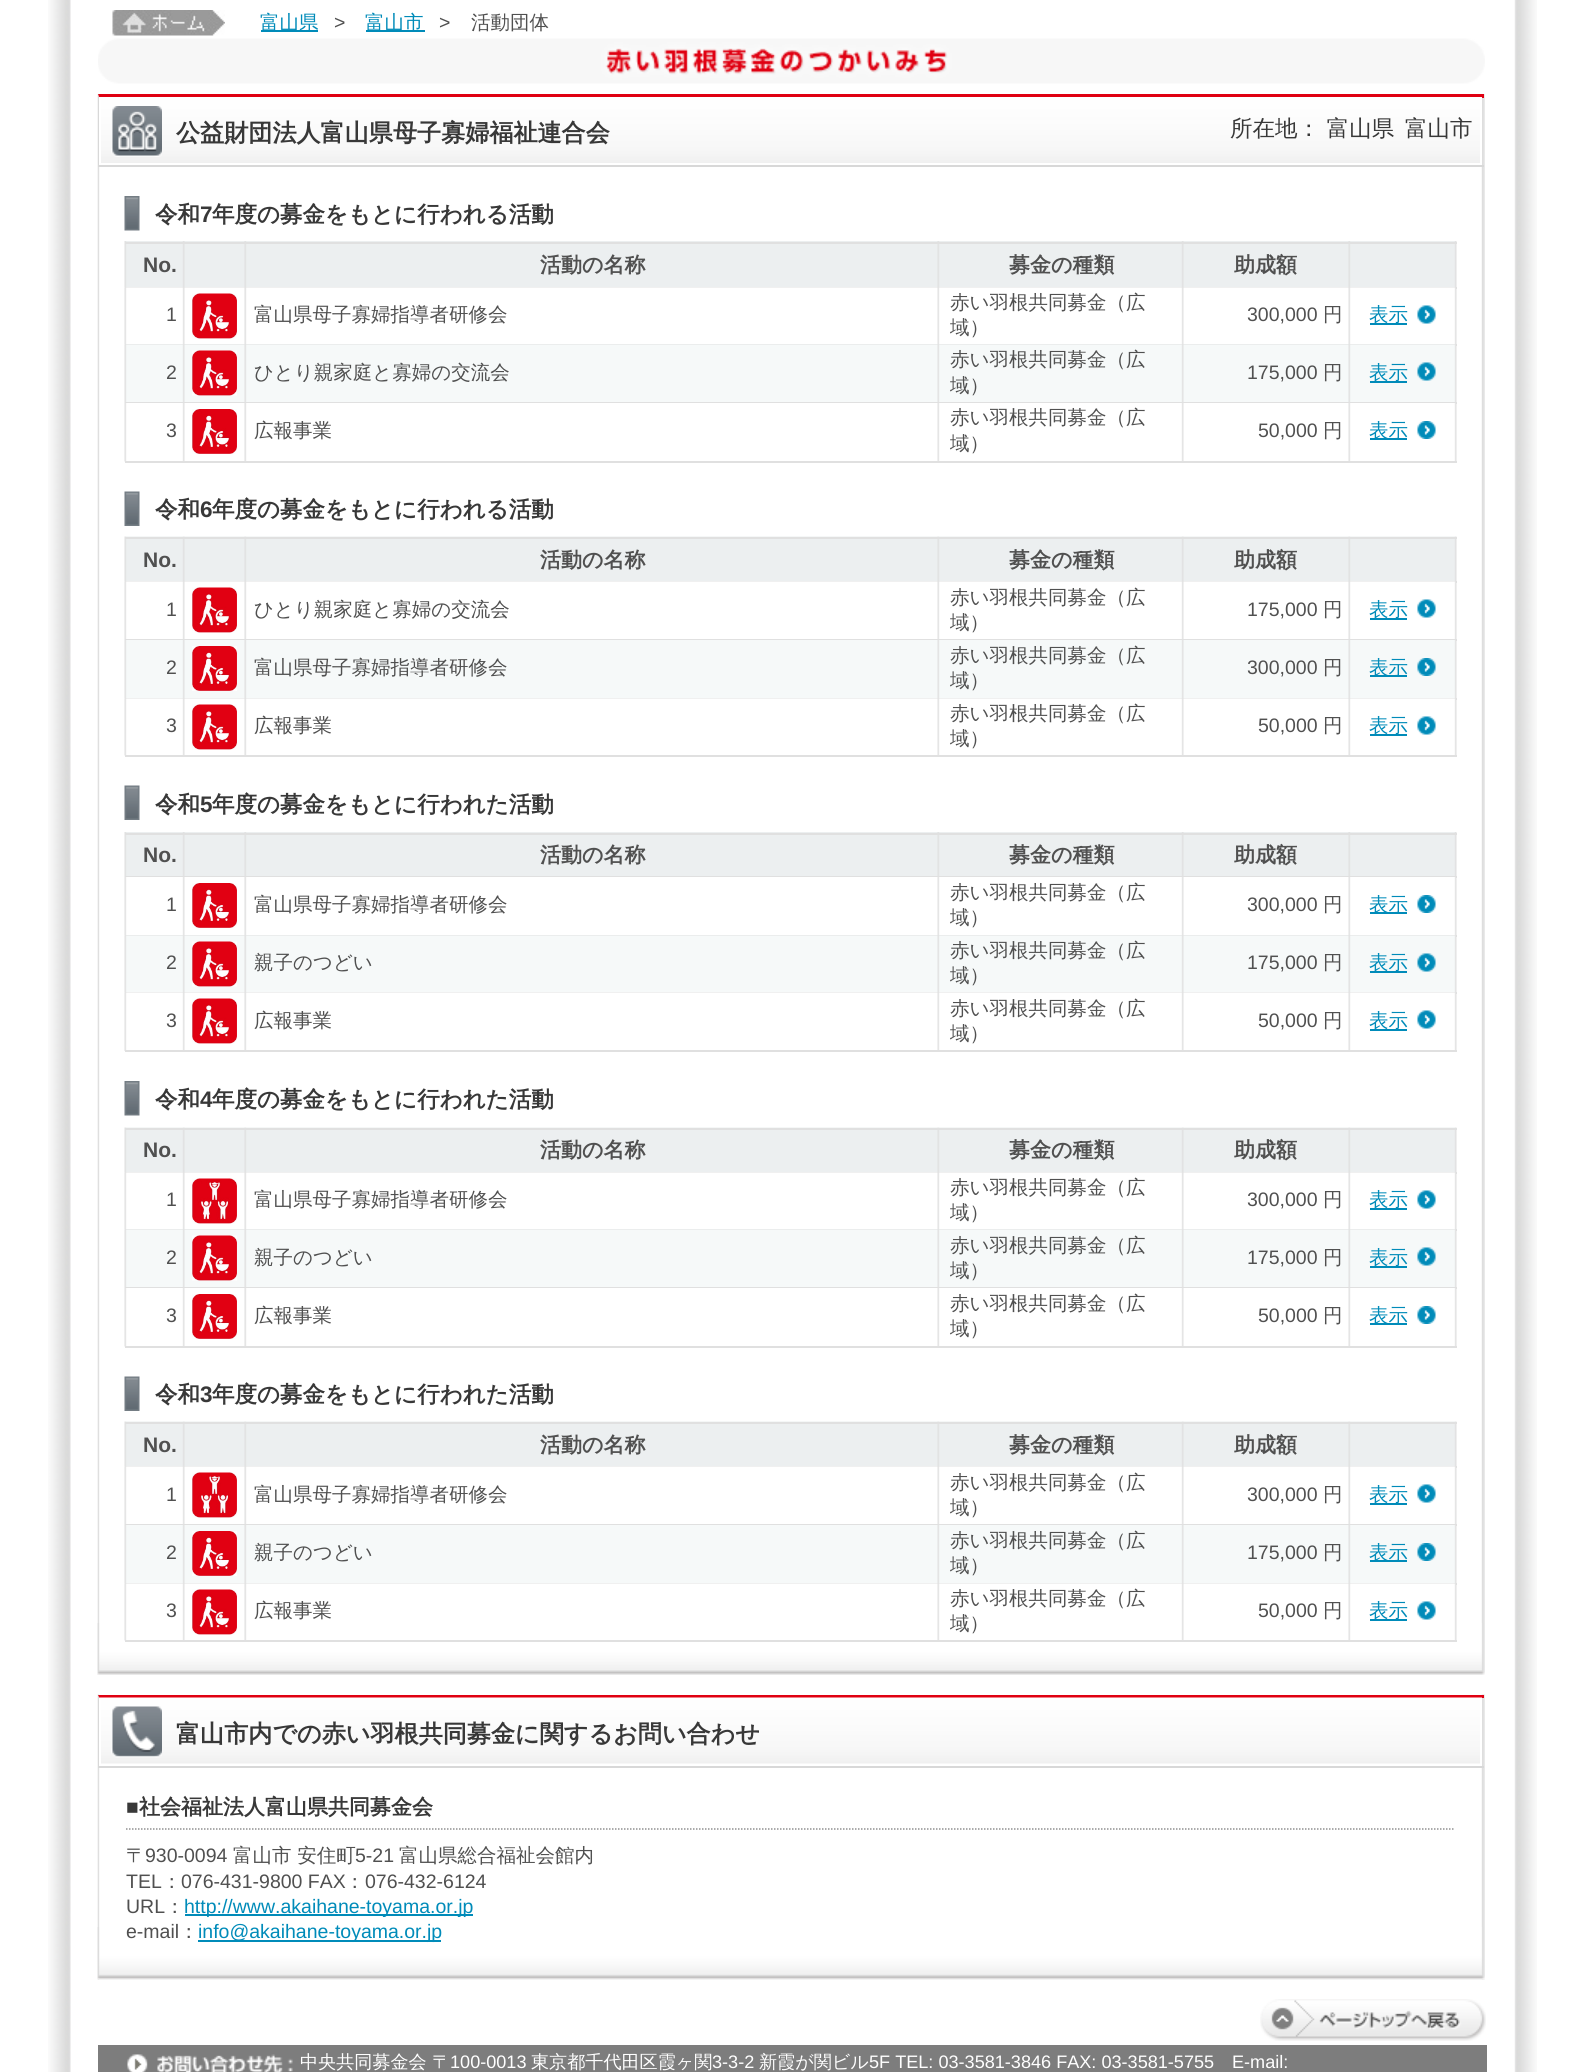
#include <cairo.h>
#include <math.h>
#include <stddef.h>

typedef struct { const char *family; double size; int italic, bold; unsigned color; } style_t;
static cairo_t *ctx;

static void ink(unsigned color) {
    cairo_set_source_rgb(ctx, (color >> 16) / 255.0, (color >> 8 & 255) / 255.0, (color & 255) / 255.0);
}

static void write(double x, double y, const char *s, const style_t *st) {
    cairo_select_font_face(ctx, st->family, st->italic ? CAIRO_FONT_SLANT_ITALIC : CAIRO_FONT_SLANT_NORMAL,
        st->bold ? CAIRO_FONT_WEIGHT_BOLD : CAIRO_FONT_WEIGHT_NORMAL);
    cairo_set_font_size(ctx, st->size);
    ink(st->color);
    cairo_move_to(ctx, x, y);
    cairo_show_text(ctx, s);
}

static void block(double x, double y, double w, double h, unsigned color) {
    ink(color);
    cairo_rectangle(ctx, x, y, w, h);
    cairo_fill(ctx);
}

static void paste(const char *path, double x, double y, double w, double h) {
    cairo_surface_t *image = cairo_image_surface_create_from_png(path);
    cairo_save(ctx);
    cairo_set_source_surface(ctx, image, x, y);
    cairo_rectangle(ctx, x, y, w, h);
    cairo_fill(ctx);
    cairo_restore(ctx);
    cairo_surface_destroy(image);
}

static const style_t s1 = {"WenQuanYi Zen Hei Medium", 19.5, 0, 0, 0x008bb9};
static const style_t s2 = {"Liberation Sans", 19.5, 0, 0, 0x505050};
static const style_t s3 = {"WenQuanYi Zen Hei Medium", 19.5, 0, 0, 0x505050};
static const style_t s4 = {"WenQuanYi Zen Hei", 24.1, 0, 1, 0x383838};
static const style_t s5 = {"WenQuanYi Zen Hei Medium", 22.5, 0, 0, 0x383838};
static const style_t s6 = {"WenQuanYi Zen Hei", 22.5, 0, 1, 0x383838};
static const style_t s7 = {"Liberation Sans", 22.5, 0, 1, 0x383838};
static const style_t s8 = {"Liberation Sans", 21, 0, 1, 0x505050};
static const style_t s9 = {"WenQuanYi Zen Hei", 21, 0, 1, 0x505050};
static const style_t s10 = {"Liberation Sans", 21, 0, 1, 0x383838};
static const style_t s11 = {"WenQuanYi Zen Hei", 21, 0, 1, 0x383838};
static const style_t s12 = {"Liberation Sans", 19.5, 0, 0, 0x008bb9};
static const style_t s13 = {"WenQuanYi Zen Hei Medium", 18.1, 0, 0, 0xffffff};
static const style_t s14 = {"Liberation Sans", 18.1, 0, 0, 0xffffff};

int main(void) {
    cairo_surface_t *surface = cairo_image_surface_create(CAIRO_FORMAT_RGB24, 1583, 2072);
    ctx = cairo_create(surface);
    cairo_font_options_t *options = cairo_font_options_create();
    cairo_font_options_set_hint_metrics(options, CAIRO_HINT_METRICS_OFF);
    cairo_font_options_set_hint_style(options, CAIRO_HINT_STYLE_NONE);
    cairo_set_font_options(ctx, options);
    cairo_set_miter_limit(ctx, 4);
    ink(0xffffff);
    cairo_paint(ctx);
    paste("pic1.png", 48, 0, 1489, 2072);
    paste("pic2.png", 112, 10, 113, 26);
    block(261, 30, 57, 2, 0x008bb9);
    write(260, 29, "富山県", &s1);
    write(334, 29, ">", &s2);
    block(366, 30, 59, 2, 0x008bb9);
    write(365, 29, "富山市", &s1);
    write(439, 29, ">", &s2);
    write(471, 29, "活動団体", &s3);
    paste("pic3.png", 98, 38, 1387, 46);
    paste("pic4.png", 97, 94, 1388, 1581);
    paste("pic5.png", 97, 1623, 1388, 52);
    ink(0xe00012);
    cairo_new_path(ctx);
    cairo_move_to(ctx, 98, 94);
    cairo_line_to(ctx, 1484, 94);
    cairo_line_to(ctx, 1484, 98);
    cairo_line_to(ctx, 99, 98);
    cairo_close_path(ctx);
    cairo_fill(ctx);
    block(98, 165, 1386, 2, 0xd8d8d8);
    cairo_new_path(ctx);
    cairo_move_to(ctx, 98, 166);
    cairo_line_to(ctx, 98, 94);
    cairo_line_to(ctx, 99, 98);
    cairo_line_to(ctx, 99, 165);
    cairo_close_path(ctx);
    cairo_fill(ctx);
    paste("pic6.png", 99, 97, 1383, 66);
    cairo_rectangle(ctx, 100, 99, 1381, 65);
    ink(0xffffff);
    cairo_stroke(ctx);
    paste("pic7.png", 111, 106, 51, 51);
    write(176, 141, "公益財団法人富山県母子寡婦福祉連合会", &s4);
    write(1230, 136, "所在地： 富山県", &s5);
    write(1405, 136, "富山市", &s5);
    paste("pic8.png", 124, 196, 16, 35);
    write(155, 222, "令和", &s6);
    write(200, 222, "7", &s7);
    write(212, 222, "年度の募金をもとに行われる活動", &s6);
    paste("pic9.png", 124, 241, 1333, 47);
    block(125, 242, 1332, 2, 0xe0e0e0);
    block(125, 287, 1332, 2, 0xe0e0e0);
    write(143, 272, "No.", &s8);
    write(540, 272, "活動の名称", &s9);
    write(1009, 272, "募金の種類", &s9);
    write(1234, 272, "助成額", &s9);
    paste("pic10.png", 124, 287, 1333, 58);
    block(125, 344, 1332, 2, 0xe0e0e0);
    write(166, 321, "1", &s2);
    paste("pic11.png", 192, 293, 45, 46);
    write(254, 321, "富山県母子寡婦指導者研修会", &s3);
    write(950, 309, "赤い羽根共同募金（広", &s3);
    write(950, 334, "域）", &s3);
    write(1247, 321, "300,000", &s2);
    write(1323, 321, "円", &s3);
    block(1370, 323, 37, 2, 0x008bb9);
    write(1369, 321, "表示", &s1);
    paste("pic12.png", 1417, 305, 19, 19);
    paste("pic13.png", 124, 344, 1333, 59);
    block(125, 402, 1332, 2, 0xe0e0e0);
    write(166, 379, "2", &s2);
    paste("pic14.png", 192, 350, 45, 46);
    write(254, 379, "ひとり親家庭と寡婦の交流会", &s3);
    write(950, 366, "赤い羽根共同募金（広", &s3);
    write(950, 392, "域）", &s3);
    write(1247, 379, "175,000", &s2);
    write(1323, 379, "円", &s3);
    block(1370, 381, 37, 2, 0x008bb9);
    write(1369, 379, "表示", &s1);
    paste("pic15.png", 1417, 362, 19, 19);
    paste("pic16.png", 124, 403, 1333, 59);
    block(125, 461, 1332, 2, 0xe0e0e0);
    write(166, 437, "3", &s2);
    paste("pic17.png", 192, 409, 45, 45);
    write(254, 437, "広報事業", &s3);
    write(950, 424, "赤い羽根共同募金（広", &s3);
    write(950, 450, "域）", &s3);
    write(1258, 437, "50,000", &s2);
    write(1323, 437, "円", &s3);
    block(1370, 438, 37, 2, 0x008bb9);
    write(1369, 437, "表示", &s1);
    paste("pic18.png", 1417, 421, 19, 18);
    paste("pic19.png", 124, 491, 16, 35);
    write(155, 517, "令和", &s6);
    write(200, 517, "6", &s7);
    write(212, 517, "年度の募金をもとに行われる活動", &s6);
    paste("pic20.png", 124, 536, 1333, 46);
    block(125, 537, 1332, 2, 0xe0e0e0);
    block(125, 581, 1332, 2, 0xe0e0e0);
    write(143, 567, "No.", &s8);
    write(540, 567, "活動の名称", &s9);
    write(1009, 567, "募金の種類", &s9);
    write(1234, 567, "助成額", &s9);
    paste("pic21.png", 124, 581, 1333, 59);
    block(125, 639, 1332, 2, 0xe0e0e0);
    write(166, 616, "1", &s2);
    paste("pic11.png", 192, 587, 45, 46);
    write(254, 616, "ひとり親家庭と寡婦の交流会", &s3);
    write(950, 604, "赤い羽根共同募金（広", &s3);
    write(950, 629, "域）", &s3);
    write(1247, 616, "175,000", &s2);
    write(1323, 616, "円", &s3);
    block(1370, 618, 37, 2, 0x008bb9);
    write(1369, 616, "表示", &s1);
    paste("pic12.png", 1417, 599, 19, 19);
    paste("pic22.png", 124, 640, 1333, 59);
    block(125, 698, 1332, 2, 0xe0e0e0);
    write(166, 674, "2", &s2);
    paste("pic17.png", 192, 646, 45, 45);
    write(254, 674, "富山県母子寡婦指導者研修会", &s3);
    write(950, 662, "赤い羽根共同募金（広", &s3);
    write(950, 687, "域）", &s3);
    write(1247, 674, "300,000", &s2);
    write(1323, 674, "円", &s3);
    block(1370, 675, 37, 2, 0x008bb9);
    write(1369, 674, "表示", &s1);
    paste("pic23.png", 1417, 658, 19, 18);
    paste("pic10.png", 124, 698, 1333, 58);
    block(125, 755, 1332, 2, 0xe0e0e0);
    write(166, 732, "3", &s2);
    paste("pic11.png", 192, 704, 45, 46);
    write(254, 732, "広報事業", &s3);
    write(950, 720, "赤い羽根共同募金（広", &s3);
    write(950, 745, "域）", &s3);
    write(1258, 732, "50,000", &s2);
    write(1323, 732, "円", &s3);
    block(1370, 734, 37, 2, 0x008bb9);
    write(1369, 732, "表示", &s1);
    paste("pic12.png", 1417, 716, 19, 19);
    paste("pic19.png", 124, 785, 16, 35);
    write(155, 812, "令和", &s6);
    write(200, 812, "5", &s7);
    write(212, 812, "年度の募金をもとに行われた活動", &s6);
    paste("pic24.png", 124, 832, 1333, 45);
    block(125, 833, 1332, 2, 0xe0e0e0);
    block(125, 876, 1332, 2, 0xe0e0e0);
    write(143, 862, "No.", &s8);
    write(540, 862, "活動の名称", &s9);
    write(1009, 862, "募金の種類", &s9);
    write(1234, 862, "助成額", &s9);
    paste("pic16.png", 124, 877, 1333, 59);
    block(125, 935, 1332, 2, 0xe0e0e0);
    write(166, 911, "1", &s2);
    paste("pic25.png", 192, 883, 45, 45);
    write(254, 911, "富山県母子寡婦指導者研修会", &s3);
    write(950, 899, "赤い羽根共同募金（広", &s3);
    write(950, 924, "域）", &s3);
    write(1247, 911, "300,000", &s2);
    write(1323, 911, "円", &s3);
    block(1370, 912, 37, 2, 0x008bb9);
    write(1369, 911, "表示", &s1);
    paste("pic18.png", 1417, 895, 19, 18);
    paste("pic26.png", 124, 935, 1333, 58);
    block(125, 992, 1332, 2, 0xe0e0e0);
    write(166, 969, "2", &s2);
    paste("pic27.png", 192, 941, 45, 46);
    write(254, 969, "親子のつどい", &s3);
    write(950, 957, "赤い羽根共同募金（広", &s3);
    write(950, 982, "域）", &s3);
    write(1247, 969, "175,000", &s2);
    write(1323, 969, "円", &s3);
    block(1370, 971, 37, 2, 0x008bb9);
    write(1369, 969, "表示", &s1);
    paste("pic15.png", 1417, 953, 19, 19);
    paste("pic21.png", 124, 992, 1333, 59);
    block(125, 1050, 1332, 2, 0xe0e0e0);
    write(166, 1027, "3", &s2);
    paste("pic11.png", 192, 998, 45, 46);
    write(254, 1027, "広報事業", &s3);
    write(950, 1015, "赤い羽根共同募金（広", &s3);
    write(950, 1040, "域）", &s3);
    write(1258, 1027, "50,000", &s2);
    write(1323, 1027, "円", &s3);
    block(1370, 1029, 37, 2, 0x008bb9);
    write(1369, 1027, "表示", &s1);
    paste("pic12.png", 1417, 1010, 19, 19);
    paste("pic8.png", 124, 1081, 16, 35);
    write(155, 1107, "令和", &s6);
    write(200, 1107, "4", &s7);
    write(212, 1107, "年度の募金をもとに行われた活動", &s6);
    paste("pic20.png", 124, 1127, 1333, 46);
    block(125, 1128, 1332, 2, 0xe0e0e0);
    block(125, 1172, 1332, 2, 0xe0e0e0);
    write(143, 1157, "No.", &s8);
    write(540, 1157, "活動の名称", &s9);
    write(1009, 1157, "募金の種類", &s9);
    write(1234, 1157, "助成額", &s9);
    paste("pic10.png", 124, 1172, 1333, 58);
    block(125, 1229, 1332, 2, 0xe0e0e0);
    write(166, 1206, "1", &s2);
    paste("pic28.png", 192, 1178, 45, 46);
    write(254, 1206, "富山県母子寡婦指導者研修会", &s3);
    write(950, 1194, "赤い羽根共同募金（広", &s3);
    write(950, 1219, "域）", &s3);
    write(1247, 1206, "300,000", &s2);
    write(1323, 1206, "円", &s3);
    block(1370, 1208, 37, 2, 0x008bb9);
    write(1369, 1206, "表示", &s1);
    paste("pic12.png", 1417, 1190, 19, 19);
    paste("pic13.png", 124, 1229, 1333, 59);
    block(125, 1287, 1332, 2, 0xe0e0e0);
    write(166, 1264, "2", &s2);
    paste("pic29.png", 192, 1235, 45, 46);
    write(254, 1264, "親子のつどい", &s3);
    write(950, 1252, "赤い羽根共同募金（広", &s3);
    write(950, 1277, "域）", &s3);
    write(1247, 1264, "175,000", &s2);
    write(1323, 1264, "円", &s3);
    block(1370, 1266, 37, 2, 0x008bb9);
    write(1369, 1264, "表示", &s1);
    paste("pic15.png", 1417, 1247, 19, 19);
    paste("pic16.png", 124, 1288, 1333, 59);
    block(125, 1346, 1332, 2, 0xe0e0e0);
    write(166, 1322, "3", &s2);
    paste("pic17.png", 192, 1294, 45, 45);
    write(254, 1322, "広報事業", &s3);
    write(950, 1310, "赤い羽根共同募金（広", &s3);
    write(950, 1335, "域）", &s3);
    write(1258, 1322, "50,000", &s2);
    write(1323, 1322, "円", &s3);
    block(1370, 1323, 37, 2, 0x008bb9);
    write(1369, 1322, "表示", &s1);
    paste("pic18.png", 1417, 1306, 19, 18);
    paste("pic19.png", 124, 1376, 16, 35);
    write(155, 1402, "令和", &s6);
    write(200, 1402, "3", &s7);
    write(212, 1402, "年度の募金をもとに行われた活動", &s6);
    paste("pic20.png", 124, 1421, 1333, 46);
    block(125, 1422, 1332, 2, 0xe0e0e0);
    block(125, 1466, 1332, 2, 0xe0e0e0);
    write(143, 1452, "No.", &s8);
    write(540, 1452, "活動の名称", &s9);
    write(1009, 1452, "募金の種類", &s9);
    write(1234, 1452, "助成額", &s9);
    paste("pic21.png", 124, 1466, 1333, 59);
    block(125, 1524, 1332, 2, 0xe0e0e0);
    write(166, 1501, "1", &s2);
    paste("pic28.png", 192, 1472, 45, 46);
    write(254, 1501, "富山県母子寡婦指導者研修会", &s3);
    write(950, 1489, "赤い羽根共同募金（広", &s3);
    write(950, 1514, "域）", &s3);
    write(1247, 1501, "300,000", &s2);
    write(1323, 1501, "円", &s3);
    block(1370, 1503, 37, 2, 0x008bb9);
    write(1369, 1501, "表示", &s1);
    paste("pic12.png", 1417, 1484, 19, 19);
    paste("pic22.png", 124, 1525, 1333, 59);
    block(125, 1583, 1332, 2, 0xe0e0e0);
    write(166, 1559, "2", &s2);
    paste("pic17.png", 192, 1531, 45, 45);
    write(254, 1559, "親子のつどい", &s3);
    write(950, 1547, "赤い羽根共同募金（広", &s3);
    write(950, 1572, "域）", &s3);
    write(1247, 1559, "175,000", &s2);
    write(1323, 1559, "円", &s3);
    block(1370, 1560, 37, 2, 0x008bb9);
    write(1369, 1559, "表示", &s1);
    paste("pic23.png", 1417, 1543, 19, 18);
    paste("pic10.png", 124, 1583, 1333, 58);
    block(125, 1640, 1332, 2, 0xe0e0e0);
    write(166, 1617, "3", &s2);
    paste("pic30.png", 192, 1589, 45, 46);
    write(254, 1617, "広報事業", &s3);
    write(950, 1605, "赤い羽根共同募金（広", &s3);
    write(950, 1630, "域）", &s3);
    write(1258, 1617, "50,000", &s2);
    write(1323, 1617, "円", &s3);
    block(1370, 1619, 37, 2, 0x008bb9);
    write(1369, 1617, "表示", &s1);
    paste("pic12.png", 1417, 1601, 19, 19);
    paste("pic31.png", 97, 1694, 1388, 286);
    paste("pic32.png", 97, 1927, 1388, 53);
    ink(0xe00012);
    cairo_new_path(ctx);
    cairo_move_to(ctx, 98, 1695);
    cairo_line_to(ctx, 1484, 1695);
    cairo_line_to(ctx, 1484, 1698);
    cairo_line_to(ctx, 99, 1698);
    cairo_close_path(ctx);
    cairo_fill(ctx);
    block(98, 1766, 1386, 2, 0xd8d8d8);
    cairo_new_path(ctx);
    cairo_move_to(ctx, 98, 1767);
    cairo_line_to(ctx, 98, 1695);
    cairo_line_to(ctx, 99, 1698);
    cairo_line_to(ctx, 99, 1766);
    cairo_close_path(ctx);
    cairo_fill(ctx);
    paste("pic33.png", 99, 1697, 1383, 67);
    cairo_rectangle(ctx, 100, 1699, 1381, 66);
    ink(0xffffff);
    cairo_stroke(ctx);
    paste("pic34.png", 111, 1706, 51, 52);
    write(176, 1742, "富山市内での赤い羽根共同募金に関するお問い合わせ", &s4);
    cairo_new_path(ctx);
    cairo_move_to(ctx, 126, 1829);
    cairo_line_to(ctx, 1455, 1829);
    ink(0x909090);
    cairo_set_line_width(ctx, 1.5);
    cairo_set_dash(ctx, (double[]){1.5, 1.5}, 2, 0);
    cairo_stroke(ctx);
    write(126, 1814, "■", &s10);
    write(139, 1814, "社会福祉法人富山県共同募金会", &s11);
    write(126, 1862, "〒", &s3);
    write(145, 1862, "930-0094", &s2);
    write(233, 1862, "富山市 安住町", &s3);
    write(355, 1862, "5-21", &s2);
    write(399, 1862, "富山県総合福祉会館内", &s3);
    write(126, 1888, "TEL", &s2);
    write(162, 1888, "：", &s3);
    write(181, 1888, "076-431-9800 FAX", &s2);
    write(345, 1888, "：", &s3);
    write(365, 1888, "076-432-6124", &s2);
    write(126, 1913, "URL", &s2);
    write(165, 1913, "：", &s3);
    block(185, 1914, 288, 2, 0x008bb9);
    write(184, 1913, "http://www.akaihane-toyama.or.jp", &s12);
    write(126, 1938, "e-mail", &s2);
    write(179, 1938, "：", &s3);
    block(198, 1940, 243, 2, 0x008bb9);
    write(198, 1938, "info@akaihane-toyama.or.jp", &s12);
    paste("pic35.png", 1260, 1999, 226, 42);
    block(98, 2045, 1389, 27, 0x7d7d7d);
    paste("pic36.png", 127, 2054, 166, 18);
    write(300, 2068, "中央共同募金会 〒", &s13);
    write(450, 2068, "100-0013", &s14);
    write(531, 2068, "東京都千代田区霞ヶ関", &s13);
    write(712, 2068, "3-3-2", &s14);
    write(759, 2068, "新霞が関ビル", &s13);
    write(869, 2068, "5F TEL: 03-3581-3846 FAX: 03-3581-5755", &s14);
    write(1232, 2068, "E-mail:", &s14);
    cairo_surface_write_to_png(surface, "screenshot.png");
    cairo_font_options_destroy(options);
    cairo_destroy(ctx);
    cairo_surface_destroy(surface);
    return 0;
}
